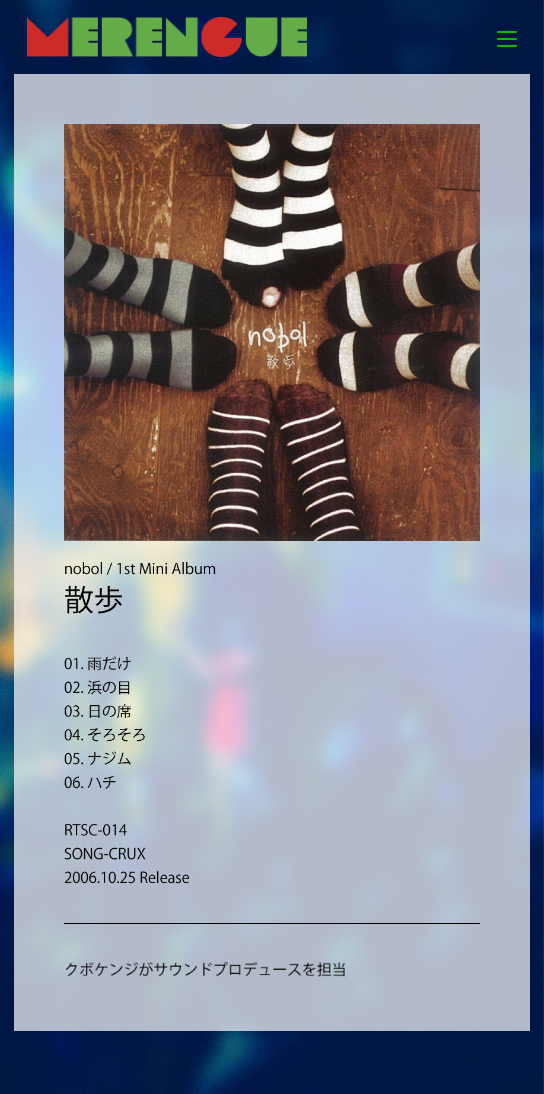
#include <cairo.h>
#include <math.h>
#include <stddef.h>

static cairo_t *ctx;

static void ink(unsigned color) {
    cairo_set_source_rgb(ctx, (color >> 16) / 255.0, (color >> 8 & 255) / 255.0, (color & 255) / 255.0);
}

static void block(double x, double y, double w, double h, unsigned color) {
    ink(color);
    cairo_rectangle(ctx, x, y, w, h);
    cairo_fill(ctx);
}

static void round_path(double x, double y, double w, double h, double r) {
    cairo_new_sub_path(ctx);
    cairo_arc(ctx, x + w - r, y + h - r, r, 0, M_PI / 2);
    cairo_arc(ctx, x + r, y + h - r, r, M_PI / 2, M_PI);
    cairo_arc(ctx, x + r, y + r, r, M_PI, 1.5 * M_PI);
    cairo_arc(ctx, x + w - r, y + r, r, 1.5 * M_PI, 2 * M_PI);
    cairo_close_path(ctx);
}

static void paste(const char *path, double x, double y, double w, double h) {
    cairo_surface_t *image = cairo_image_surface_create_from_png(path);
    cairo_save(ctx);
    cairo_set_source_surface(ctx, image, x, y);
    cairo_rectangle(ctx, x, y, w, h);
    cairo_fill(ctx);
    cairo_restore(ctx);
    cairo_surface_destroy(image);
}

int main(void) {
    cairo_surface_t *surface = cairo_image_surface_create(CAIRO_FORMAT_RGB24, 544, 1094);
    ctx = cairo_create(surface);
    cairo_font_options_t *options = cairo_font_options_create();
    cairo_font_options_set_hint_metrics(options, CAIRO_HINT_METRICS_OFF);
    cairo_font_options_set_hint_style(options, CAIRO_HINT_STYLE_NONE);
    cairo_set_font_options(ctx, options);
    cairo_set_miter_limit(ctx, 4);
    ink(0xffffff);
    cairo_paint(ctx);
    paste("pic1.png", 0, 0, 544, 1094);
    paste("pic2.png", 27, 17, 280, 40);
    ink(0x0fb700);
    round_path(497, 38, 20, 2, 1);
    cairo_fill(ctx);
    round_path(497, 31, 20, 2, 1);
    cairo_fill(ctx);
    round_path(497, 45, 20, 2, 1);
    cairo_fill(ctx);
    cairo_set_source_rgba(ctx, 1, 1, 1, 0.7);
    cairo_rectangle(ctx, 14, 74, 516, 957);
    cairo_fill(ctx);
    paste("pic3.png", 64, 124, 416, 417);
    paste("pic4.png", 64, 562, 152, 322);
    block(64, 923, 416, 1, 0x000000);
    paste("pic5.png", 65, 962, 280, 15);
    cairo_surface_write_to_png(surface, "screenshot.png");
    cairo_font_options_destroy(options);
    cairo_destroy(ctx);
    cairo_surface_destroy(surface);
    return 0;
}
